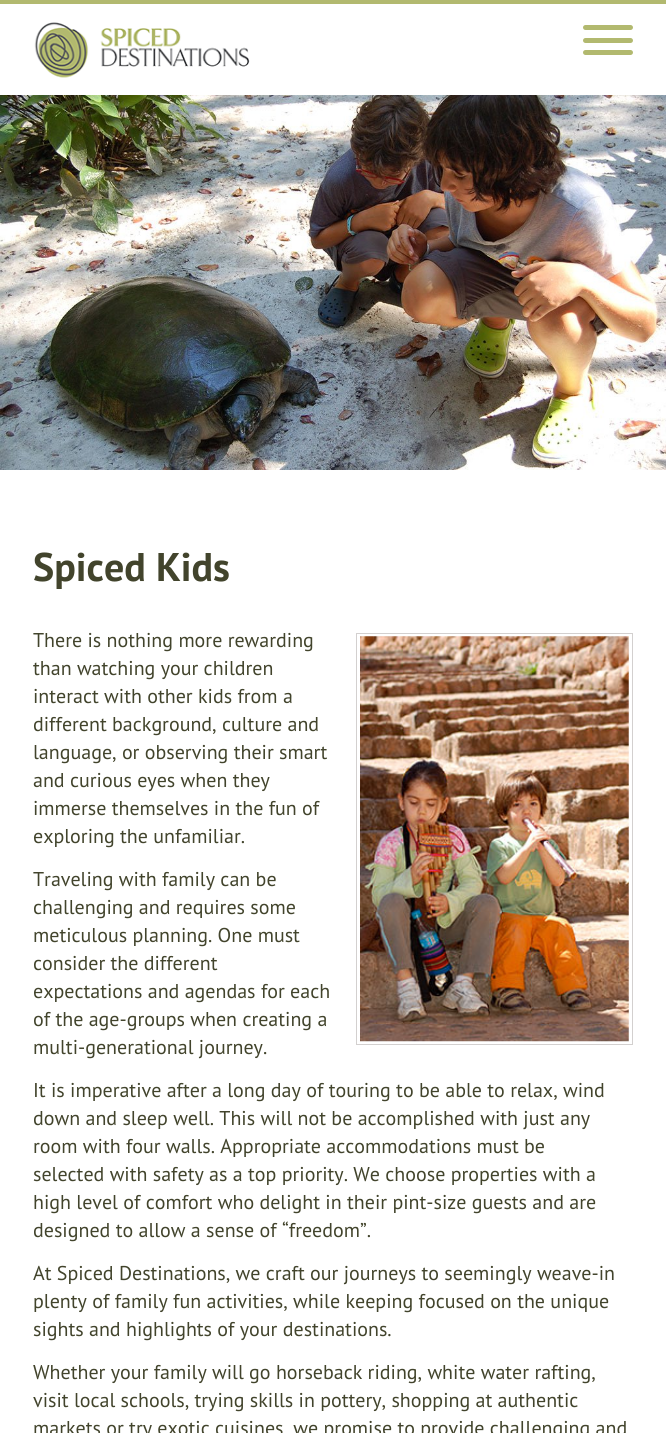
#include <cairo.h>
#include <math.h>
#include <stddef.h>

typedef struct { const char *family; double size; int italic, bold; unsigned color; } style_t;
static cairo_t *ctx;

static void ink(unsigned color) {
    cairo_set_source_rgb(ctx, (color >> 16) / 255.0, (color >> 8 & 255) / 255.0, (color & 255) / 255.0);
}

static void write(double x, double y, const char *s, const style_t *st) {
    cairo_select_font_face(ctx, st->family, st->italic ? CAIRO_FONT_SLANT_ITALIC : CAIRO_FONT_SLANT_NORMAL,
        st->bold ? CAIRO_FONT_WEIGHT_BOLD : CAIRO_FONT_WEIGHT_NORMAL);
    cairo_set_font_size(ctx, st->size);
    ink(st->color);
    cairo_move_to(ctx, x, y);
    cairo_show_text(ctx, s);
}

static void block(double x, double y, double w, double h, unsigned color) {
    ink(color);
    cairo_rectangle(ctx, x, y, w, h);
    cairo_fill(ctx);
}

static void round_path(double x, double y, double w, double h, double r) {
    cairo_new_sub_path(ctx);
    cairo_arc(ctx, x + w - r, y + h - r, r, 0, M_PI / 2);
    cairo_arc(ctx, x + r, y + h - r, r, M_PI / 2, M_PI);
    cairo_arc(ctx, x + r, y + r, r, M_PI, 1.5 * M_PI);
    cairo_arc(ctx, x + w - r, y + r, r, 1.5 * M_PI, 2 * M_PI);
    cairo_close_path(ctx);
}

static void paste(const char *path, double x, double y, double w, double h) {
    cairo_surface_t *image = cairo_image_surface_create_from_png(path);
    cairo_save(ctx);
    cairo_set_source_surface(ctx, image, x, y);
    cairo_rectangle(ctx, x, y, w, h);
    cairo_fill(ctx);
    cairo_restore(ctx);
    cairo_surface_destroy(image);
}

static const style_t s1 = {"PT Sans", 40, 0, 1, 0x42442c};
static const style_t s2 = {"PT Sans", 20, 0, 0, 0x42442c};

int main(void) {
    cairo_surface_t *surface = cairo_image_surface_create(CAIRO_FORMAT_RGB24, 666, 1433);
    ctx = cairo_create(surface);
    cairo_font_options_t *options = cairo_font_options_create();
    cairo_font_options_set_hint_metrics(options, CAIRO_HINT_METRICS_OFF);
    cairo_font_options_set_hint_style(options, CAIRO_HINT_STYLE_NONE);
    cairo_set_font_options(ctx, options);
    cairo_set_miter_limit(ctx, 4);
    ink(0xffffff);
    cairo_paint(ctx);
    block(0, 0, 666, 4, 0xb2b96f);
    paste("pic1.png", 34, 22, 216, 56);
    round_path(583, 38, 50, 5, 2.5);
    cairo_fill(ctx);
    round_path(583, 25, 50, 5, 2.5);
    cairo_fill(ctx);
    round_path(583, 50, 50, 5, 2.5);
    cairo_fill(ctx);
    paste("pic2.png", 0, 95, 666, 375);
    write(33, 581, "Spiced Kids", &s1);
    write(33, 647, "There is nothing more rewarding", &s2);
    cairo_rectangle(ctx, 356.5, 633.5, 276, 411);
    ink(0xd3d0cf);
    cairo_set_line_width(ctx, 1);
    cairo_stroke(ctx);
    paste("pic3.png", 360, 636, 269, 406);
    write(33, 675, "than watching your children", &s2);
    write(33, 703, "interact with other kids from a", &s2);
    write(33, 731, "different background, culture and", &s2);
    write(33, 759, "language, or observing their smart", &s2);
    write(33, 787, "and curious eyes when they", &s2);
    write(33, 815, "immerse themselves in the fun of", &s2);
    write(33, 843, "exploring the unfamiliar.", &s2);
    write(33, 886, "Traveling with family can be", &s2);
    write(33, 914, "challenging and requires some", &s2);
    write(33, 942, "meticulous planning. One must", &s2);
    write(33, 970, "consider the different", &s2);
    write(33, 998, "expectations and agendas for each", &s2);
    write(33, 1026, "of the age-groups when creating a", &s2);
    write(33, 1054, "multi-generational journey.", &s2);
    write(33, 1097, "It is imperative after a long day of touring to be able to relax, wind", &s2);
    write(33, 1125, "down and sleep well. This will not be accomplished with just any", &s2);
    write(33, 1153, "room with four walls. Appropriate accommodations must be", &s2);
    write(33, 1181, "selected with safety as a top priority. We choose properties with a", &s2);
    write(33, 1209, "high level of comfort who delight in their pint-size guests and are", &s2);
    write(33, 1237, "designed to allow a sense of “freedom”.", &s2);
    write(33, 1280, "At Spiced Destinations, we craft our journeys to seemingly weave-in", &s2);
    write(33, 1308, "plenty of family fun activities, while keeping focused on the unique", &s2);
    write(33, 1336, "sights and highlights of your destinations.", &s2);
    write(33, 1379, "Whether your family will go horseback riding, white water rafting,", &s2);
    write(33, 1407, "visit local schools, trying skills in pottery, shopping at authentic", &s2);
    write(33, 1435, "markets or try exotic cuisines, we promise to provide challenging and", &s2);
    cairo_surface_write_to_png(surface, "screenshot.png");
    cairo_font_options_destroy(options);
    cairo_destroy(ctx);
    cairo_surface_destroy(surface);
    return 0;
}
